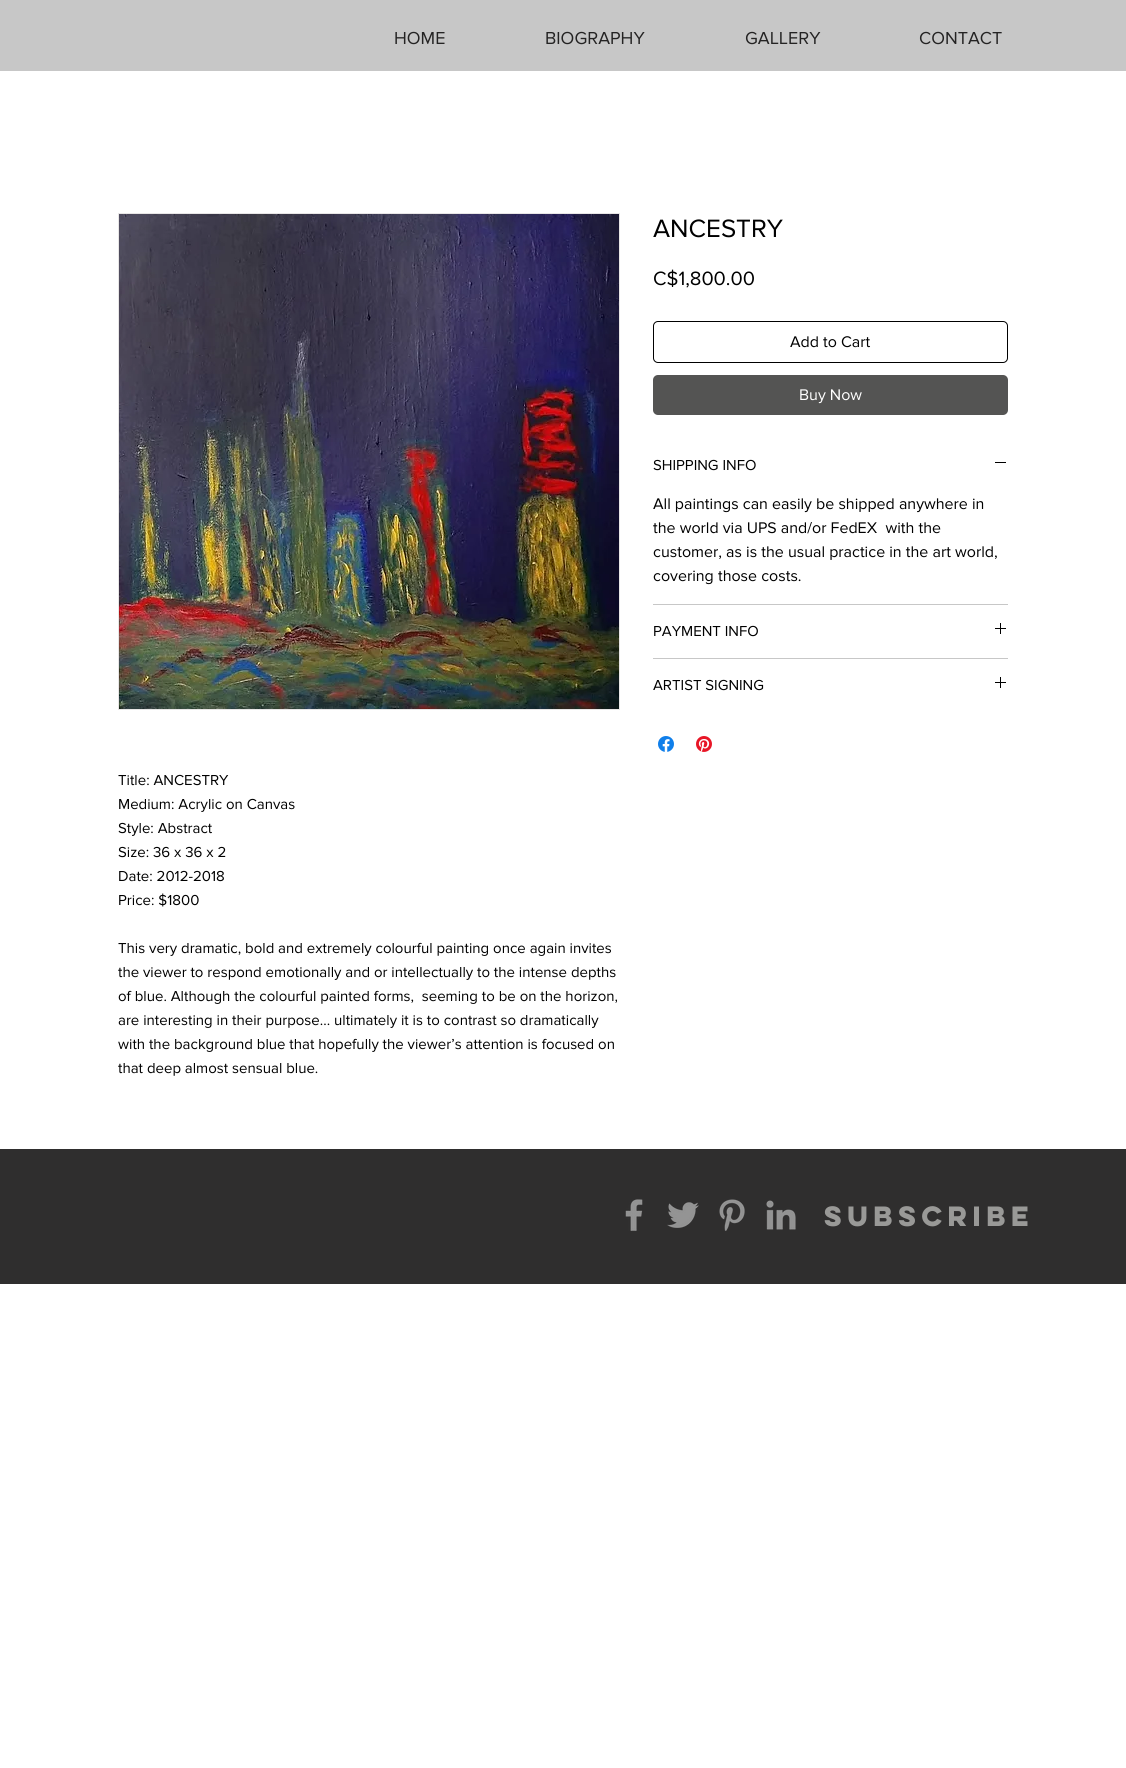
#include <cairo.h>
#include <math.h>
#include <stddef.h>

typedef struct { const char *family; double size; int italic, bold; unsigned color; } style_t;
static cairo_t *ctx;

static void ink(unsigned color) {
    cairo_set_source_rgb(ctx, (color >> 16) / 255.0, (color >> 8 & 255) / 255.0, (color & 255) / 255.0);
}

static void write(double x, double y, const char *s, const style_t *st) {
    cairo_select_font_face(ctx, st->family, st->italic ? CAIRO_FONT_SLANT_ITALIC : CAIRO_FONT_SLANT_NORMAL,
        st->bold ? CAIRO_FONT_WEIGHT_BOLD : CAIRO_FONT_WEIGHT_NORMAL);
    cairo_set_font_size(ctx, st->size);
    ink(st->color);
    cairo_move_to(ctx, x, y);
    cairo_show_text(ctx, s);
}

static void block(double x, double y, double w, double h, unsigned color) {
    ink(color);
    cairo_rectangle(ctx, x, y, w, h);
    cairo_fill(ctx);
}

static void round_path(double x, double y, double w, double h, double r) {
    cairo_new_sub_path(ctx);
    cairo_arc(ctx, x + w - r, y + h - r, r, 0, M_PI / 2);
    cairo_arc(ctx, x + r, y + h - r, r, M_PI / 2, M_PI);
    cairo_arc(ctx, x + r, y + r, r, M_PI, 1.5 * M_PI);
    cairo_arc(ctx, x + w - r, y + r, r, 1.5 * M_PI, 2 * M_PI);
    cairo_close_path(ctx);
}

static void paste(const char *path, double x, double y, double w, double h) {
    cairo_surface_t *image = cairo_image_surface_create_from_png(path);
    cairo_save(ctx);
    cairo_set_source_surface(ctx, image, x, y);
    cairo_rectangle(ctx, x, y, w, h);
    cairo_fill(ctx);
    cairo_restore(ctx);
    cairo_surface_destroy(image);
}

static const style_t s1 = {"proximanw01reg", 18, 0, 0, 0x242323};
static const style_t s2 = {"proximanw01reg", 26, 0, 0, 0x000000};
static const style_t s3 = {"proximanw01reg", 20, 0, 0, 0x000000};
static const style_t s4 = {"proximanw01reg", 16, 0, 0, 0x000000};
static const style_t s5 = {"proximanw01reg", 16, 0, 0, 0xffffff};
static const style_t s6 = {"proximanw01reg", 15, 0, 0, 0x000000};
static const style_t s7 = {"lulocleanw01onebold", 25, 0, 1, 0x999997};

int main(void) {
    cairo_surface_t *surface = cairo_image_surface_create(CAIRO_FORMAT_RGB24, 1126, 1768);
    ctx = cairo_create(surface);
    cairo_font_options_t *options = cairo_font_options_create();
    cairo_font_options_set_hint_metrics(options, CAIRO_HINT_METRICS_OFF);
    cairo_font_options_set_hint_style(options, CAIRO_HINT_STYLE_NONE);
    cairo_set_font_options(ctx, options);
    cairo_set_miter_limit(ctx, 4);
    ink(0xffffff);
    cairo_paint(ctx);
    block(0, 0, 1126, 71, 0xc7c7c7);
    write(394, 44, "HOME", &s1);
    write(545, 44, "BIOGRAPHY", &s1);
    write(745, 44, "GALLERY", &s1);
    write(919, 44, "CONTACT", &s1);
    write(653, 237, "ANCESTRY", &s2);
    write(653, 285, "C$1,800.00", &s3);
    round_path(653.5, 321.5, 354, 41, 4.5);
    cairo_set_line_width(ctx, 1);
    cairo_stroke(ctx);
    write(790, 347, "Add to Cart", &s4);
    ink(0x545453);
    round_path(653, 375, 355, 40, 5);
    cairo_fill(ctx);
    write(799, 400, "Buy Now", &s5);
    block(653, 604, 355, 1, 0xc7c7c7);
    write(653, 470, "SHIPPING INFO", &s6);
    block(995, 462, 11, 1, 0x000000);
    write(653, 509, "All paintings can easily be shipped anywhere in", &s4);
    write(653, 533, "the world via UPS and/or FedEX  with the", &s4);
    write(653, 557, "customer, as is the usual practice in the art world,", &s4);
    write(653, 581, "covering those costs.", &s4);
    block(653, 658, 355, 1, 0xc7c7c7);
    write(653, 636, "PAYMENT INFO", &s6);
    paste("pic1.png", 995, 623, 11, 11);
    write(653, 690, "ARTIST SIGNING", &s6);
    paste("pic1.png", 995, 677, 11, 11);
    paste("pic2.png", 658, 736, 16, 16);
    paste("pic3.png", 696, 736, 16, 16);
    cairo_rectangle(ctx, 118.5, 213.5, 501, 496);
    ink(0xe8e6e6);
    cairo_stroke(ctx);
    paste("pic4.png", 119, 214, 500, 495);
    write(118, 785, "Title: ANCESTRY", &s6);
    write(118, 809, "Medium: Acrylic on Canvas", &s6);
    write(118, 833, "Style: Abstract", &s6);
    write(118, 857, "Size: 36 x 36 x 2", &s6);
    write(118, 881, "Date: 2012-2018", &s6);
    write(118, 905, "Price: $1800", &s6);
    write(118, 953, "This very dramatic, bold and extremely colourful painting once again invites", &s6);
    write(118, 977, "the viewer to respond emotionally and or intellectually to the intense depths", &s6);
    write(118, 1001, "of blue. Although the colourful painted forms,  seeming to be on the horizon,", &s6);
    write(118, 1025, "are interesting in their purpose... ultimately it is to contrast so dramatically", &s6);
    write(118, 1049, "with the background blue that hopefully the viewer’s attention is focused on", &s6);
    write(118, 1073, "that deep almost sensual blue.", &s6);
    block(0, 1149, 1126, 135, 0x2f2e2e);
    paste("pic5.png", 625, 1199, 18, 32);
    paste("pic6.png", 667, 1202, 32, 26);
    paste("pic7.png", 719, 1199, 26, 32);
    paste("pic8.png", 766, 1200, 30, 30);
    write(824, 1226, "SUBSCRIBE", &s7);
    cairo_surface_write_to_png(surface, "screenshot.png");
    cairo_font_options_destroy(options);
    cairo_destroy(ctx);
    cairo_surface_destroy(surface);
    return 0;
}
